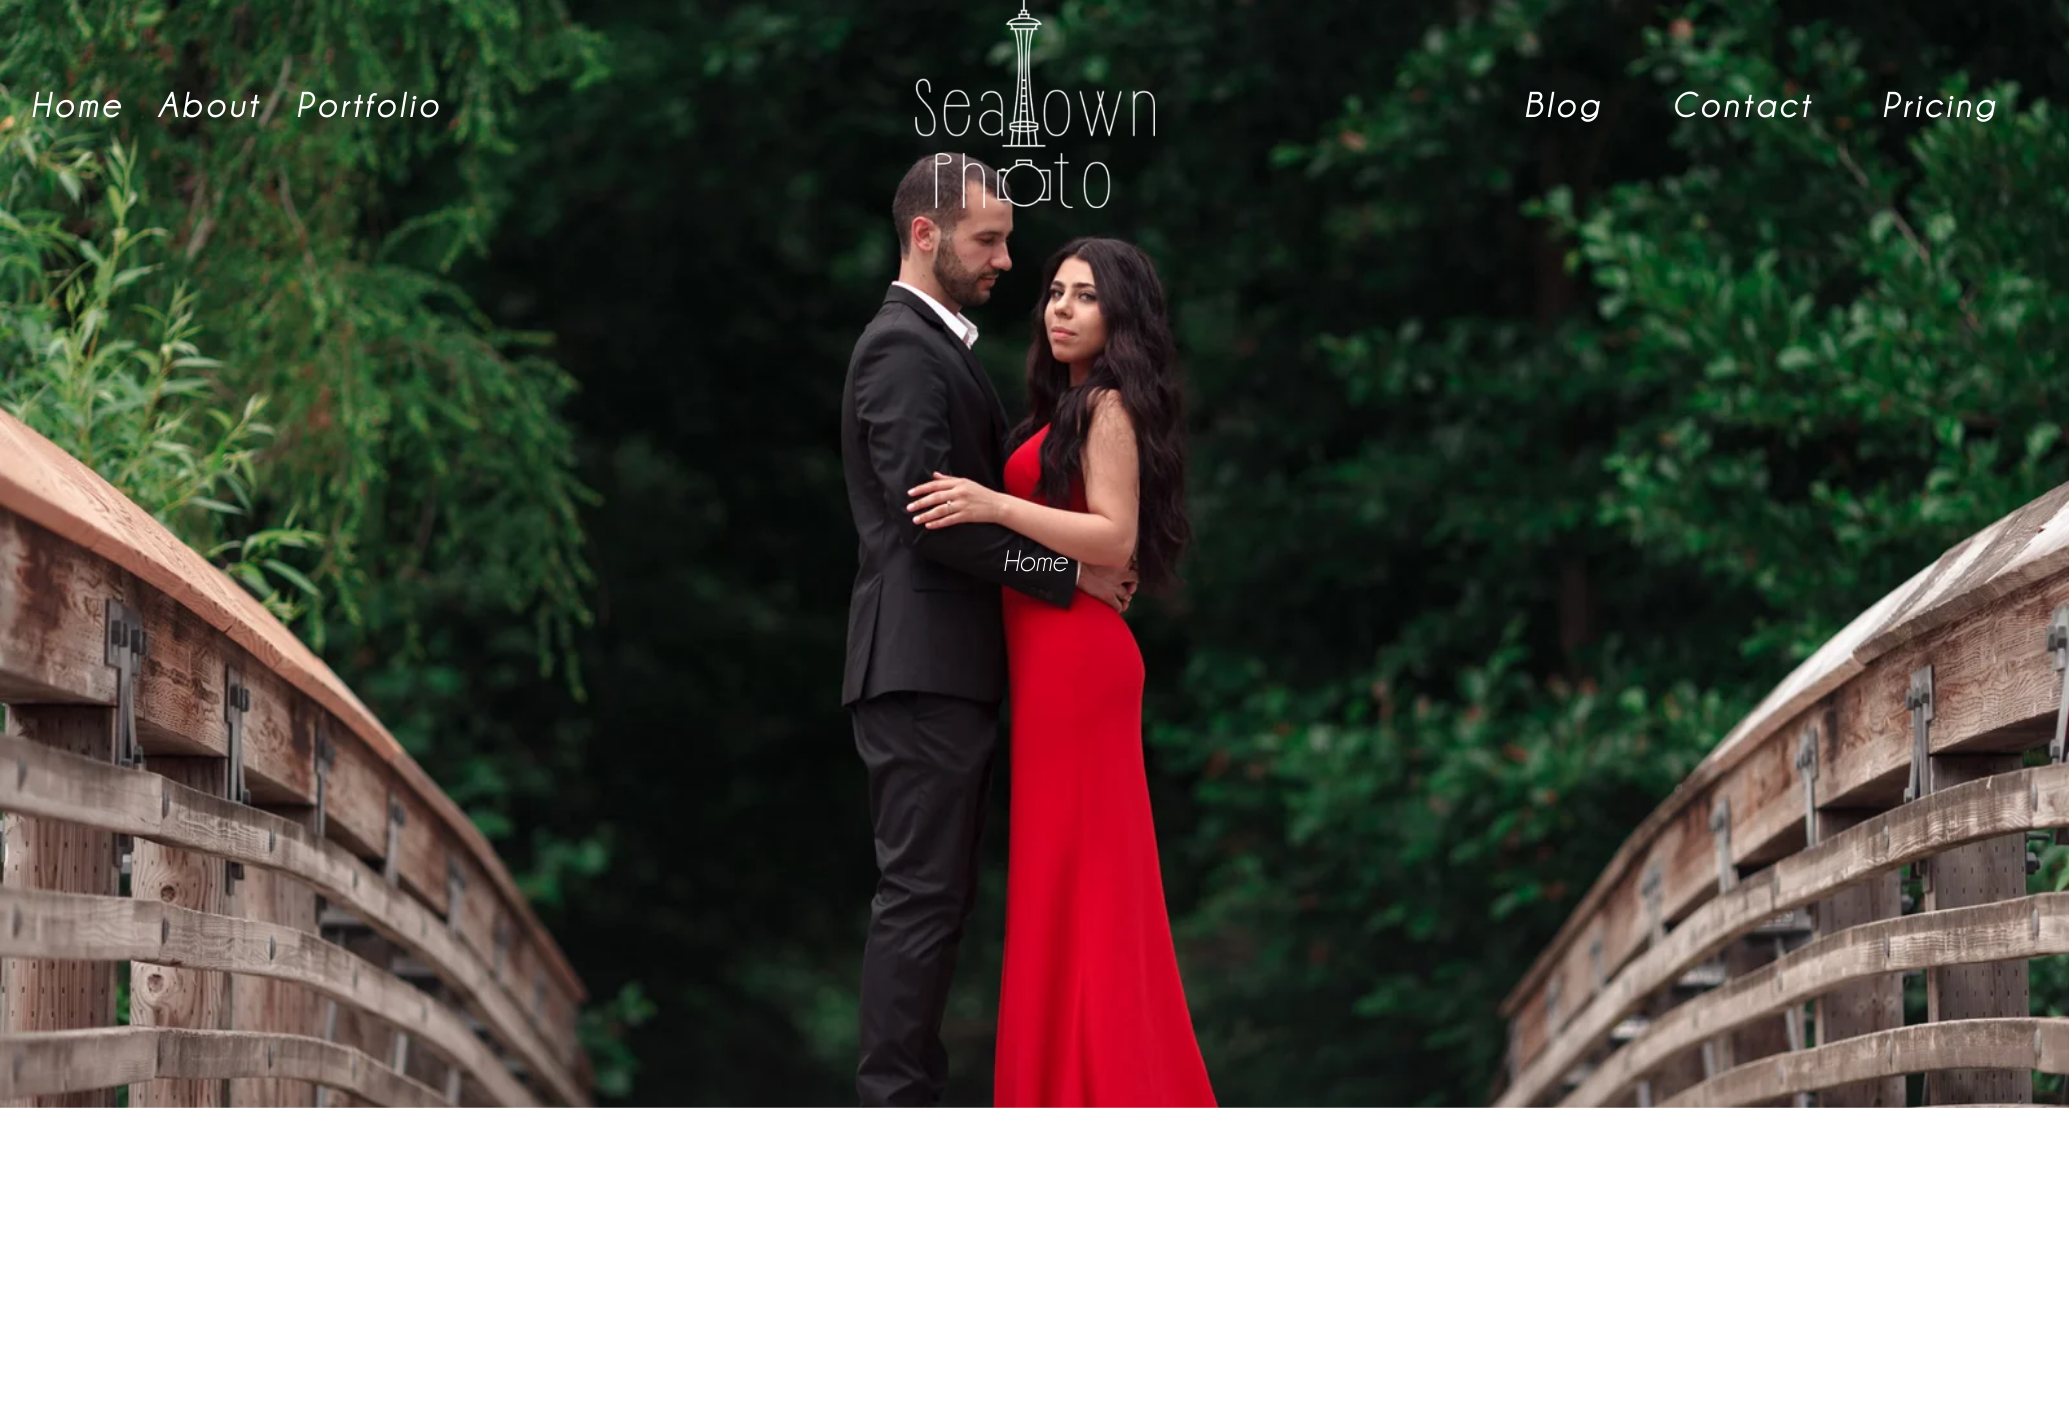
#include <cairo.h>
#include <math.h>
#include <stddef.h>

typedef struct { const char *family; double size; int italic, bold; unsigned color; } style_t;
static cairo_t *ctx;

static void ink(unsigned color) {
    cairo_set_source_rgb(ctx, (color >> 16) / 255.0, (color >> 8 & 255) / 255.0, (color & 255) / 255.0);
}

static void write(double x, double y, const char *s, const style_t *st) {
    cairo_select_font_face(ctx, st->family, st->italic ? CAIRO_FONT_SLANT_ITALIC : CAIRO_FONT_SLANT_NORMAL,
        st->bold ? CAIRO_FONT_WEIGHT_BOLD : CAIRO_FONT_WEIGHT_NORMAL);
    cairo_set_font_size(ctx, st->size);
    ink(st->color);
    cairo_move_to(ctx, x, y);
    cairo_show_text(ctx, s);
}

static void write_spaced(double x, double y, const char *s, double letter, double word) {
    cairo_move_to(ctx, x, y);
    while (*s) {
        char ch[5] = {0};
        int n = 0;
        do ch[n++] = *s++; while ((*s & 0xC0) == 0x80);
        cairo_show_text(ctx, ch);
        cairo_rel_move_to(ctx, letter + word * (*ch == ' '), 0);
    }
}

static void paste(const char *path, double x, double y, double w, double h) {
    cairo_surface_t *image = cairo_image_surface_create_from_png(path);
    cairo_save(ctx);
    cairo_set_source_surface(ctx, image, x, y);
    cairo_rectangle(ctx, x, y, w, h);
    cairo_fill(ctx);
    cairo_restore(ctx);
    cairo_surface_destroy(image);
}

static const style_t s1 = {"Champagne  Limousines", 30, 1, 0, 0xffffff};

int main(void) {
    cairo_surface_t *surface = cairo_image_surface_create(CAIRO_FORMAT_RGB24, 2069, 1408);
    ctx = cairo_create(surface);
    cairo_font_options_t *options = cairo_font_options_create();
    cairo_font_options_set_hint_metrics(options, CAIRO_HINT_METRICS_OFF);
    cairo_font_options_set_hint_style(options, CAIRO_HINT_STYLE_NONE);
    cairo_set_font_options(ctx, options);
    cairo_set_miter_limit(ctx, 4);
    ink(0xffffff);
    cairo_paint(ctx);
    paste("pic2.png", 0, 0, 2069, 1108);
    cairo_select_font_face(ctx, "Champagne  Limousines", CAIRO_FONT_SLANT_ITALIC, CAIRO_FONT_WEIGHT_BOLD);
    cairo_set_font_size(ctx, 35);
    ink(0xffffff);
    write_spaced(31, 117, "Home", 4.4, 0);
    write_spaced(158, 117, "About", 4.4, 0);
    write_spaced(296, 117, "Portfolio", 4.4, 0);
    paste("pic1.png", 915, 0, 240, 209);
    write_spaced(1524, 117, "Blog", 4.4, 0);
    write_spaced(1672, 117, "Contact", 4.4, 0);
    write_spaced(1882, 117, "Pricing", 4.4, 0);
    write(1003, 571, "Home", &s1);
    cairo_surface_write_to_png(surface, "screenshot.png");
    cairo_font_options_destroy(options);
    cairo_destroy(ctx);
    cairo_surface_destroy(surface);
    return 0;
}
